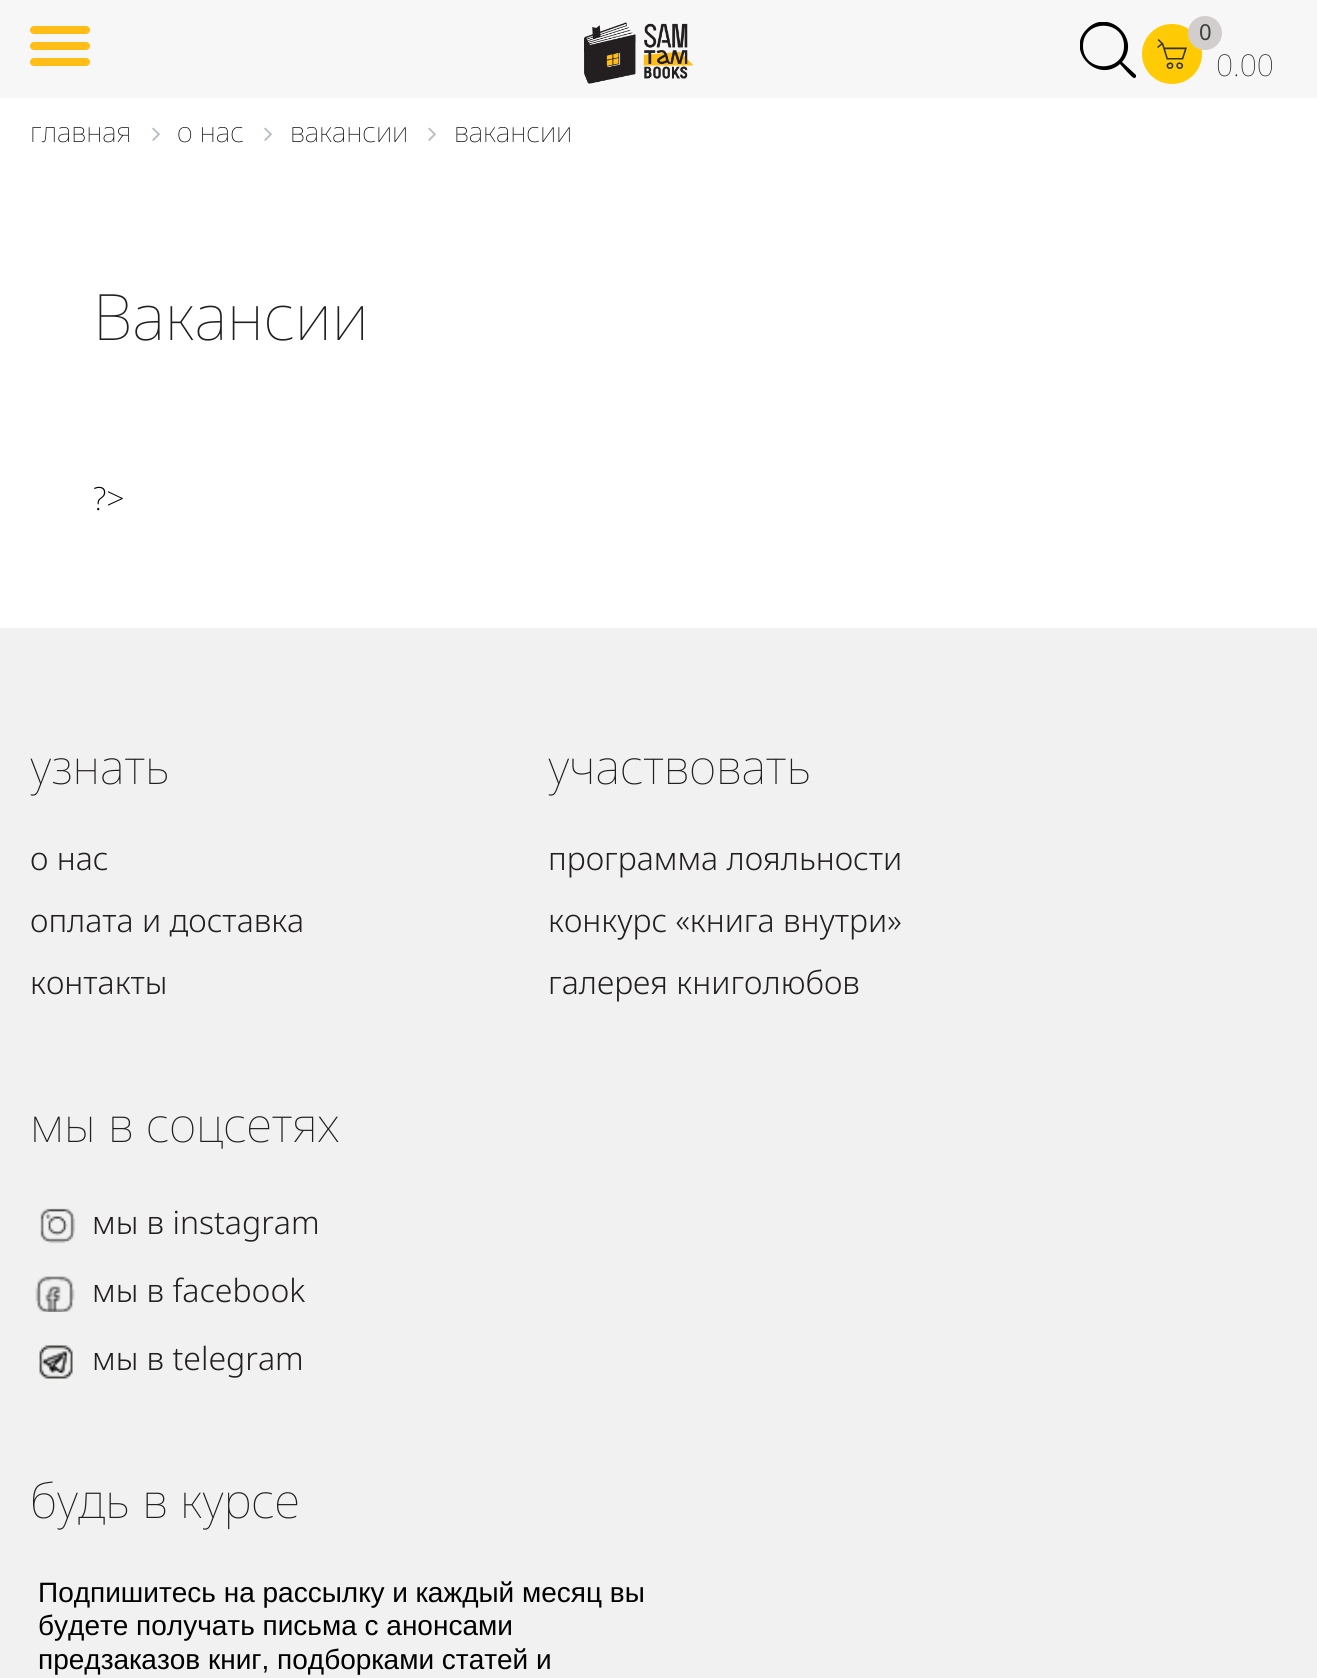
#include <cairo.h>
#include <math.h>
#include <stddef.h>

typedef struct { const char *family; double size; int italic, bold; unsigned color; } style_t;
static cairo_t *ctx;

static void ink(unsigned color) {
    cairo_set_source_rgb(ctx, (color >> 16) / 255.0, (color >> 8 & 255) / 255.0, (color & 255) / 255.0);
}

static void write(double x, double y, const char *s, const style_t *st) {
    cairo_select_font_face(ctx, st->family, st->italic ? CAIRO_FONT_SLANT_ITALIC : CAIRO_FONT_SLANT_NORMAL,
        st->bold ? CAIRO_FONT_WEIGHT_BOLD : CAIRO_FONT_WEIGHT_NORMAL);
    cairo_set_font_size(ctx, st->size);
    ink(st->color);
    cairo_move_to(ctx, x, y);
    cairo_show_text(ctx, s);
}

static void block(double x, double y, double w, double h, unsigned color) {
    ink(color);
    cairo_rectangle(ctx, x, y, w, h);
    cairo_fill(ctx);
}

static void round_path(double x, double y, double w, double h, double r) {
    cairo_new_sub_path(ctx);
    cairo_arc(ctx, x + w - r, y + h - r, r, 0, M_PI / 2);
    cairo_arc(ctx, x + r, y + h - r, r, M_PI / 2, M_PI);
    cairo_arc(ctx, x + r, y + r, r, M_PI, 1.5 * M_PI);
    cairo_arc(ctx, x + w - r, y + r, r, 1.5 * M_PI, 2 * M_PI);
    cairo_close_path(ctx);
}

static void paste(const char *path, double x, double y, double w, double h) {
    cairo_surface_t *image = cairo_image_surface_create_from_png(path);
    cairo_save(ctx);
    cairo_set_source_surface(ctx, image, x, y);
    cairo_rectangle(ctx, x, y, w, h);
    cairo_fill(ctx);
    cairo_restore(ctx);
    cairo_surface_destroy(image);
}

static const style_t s1 = {"Noto Sans", 22, 0, 0, 0x3d3d3d};
static const style_t s2 = {"Noto Sans Thin", 30, 0, 0, 0x231f20};
static const style_t s3 = {"Noto Sans Thin", 28, 0, 0, 0x000000};
static const style_t s4 = {"Noto Sans Thin", 64, 0, 0, 0x231f20};
static const style_t s5 = {"Noto Sans ExtraLight", 32, 0, 0, 0x000000};
static const style_t s6 = {"Noto Sans Thin", 48, 0, 0, 0x231f20};
static const style_t s7 = {"Noto Sans Light", 32, 0, 0, 0x231f20};
static const style_t s8 = {"Liberation Sans", 28, 0, 0, 0x000000};

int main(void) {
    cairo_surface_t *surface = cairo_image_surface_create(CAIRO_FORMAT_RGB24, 1317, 1678);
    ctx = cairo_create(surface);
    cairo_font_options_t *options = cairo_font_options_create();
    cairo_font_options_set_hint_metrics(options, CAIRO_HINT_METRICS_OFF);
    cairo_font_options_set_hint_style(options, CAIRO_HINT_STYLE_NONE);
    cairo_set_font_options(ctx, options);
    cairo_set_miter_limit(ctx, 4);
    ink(0xffffff);
    cairo_paint(ctx);
    block(0, 0, 1317, 98, 0xf7f7f7);
    ink(0xffbd17);
    round_path(30, 42, 60, 8, 4);
    cairo_fill(ctx);
    round_path(30, 26, 60, 8, 4);
    cairo_fill(ctx);
    round_path(30, 58, 60, 8, 4);
    cairo_fill(ctx);
    paste("pic1.png", 584, 22, 110, 62);
    cairo_save(ctx);
    cairo_rectangle(ctx, 1080, 22, 56, 56);
    cairo_clip(ctx);
    ink(0x000000);
    cairo_new_path(ctx);
    cairo_move_to(ctx, 1136, 75);
    cairo_line_to(ctx, 1122, 62);
    cairo_curve_to(ctx, 1142, 39, 1108, 7, 1087, 29);
    cairo_curve_to(ctx, 1065, 50, 1097, 84, 1120, 64);
    cairo_curve_to(ctx, 1122, 66, 1132, 78, 1134, 78);
    cairo_curve_to(ctx, 1136, 78, 1137, 76, 1136, 75);
    cairo_close_path(ctx);
    cairo_move_to(ctx, 1083, 46);
    cairo_curve_to(ctx, 1083, 19, 1124, 19, 1124, 46);
    cairo_curve_to(ctx, 1124, 73, 1083, 73, 1083, 46);
    cairo_close_path(ctx);
    cairo_fill(ctx);
    cairo_restore(ctx);
    ink(0xffcb04);
    cairo_arc(ctx, 1172, 54, 30, 0, 2 * M_PI);
    cairo_fill(ctx);
    ink(0xd2cece);
    cairo_arc(ctx, 1205, 33, 17, 0, 2 * M_PI);
    cairo_fill(ctx);
    write(1199, 40, "0", &s1);
    paste("pic2.png", 1157, 39, 30, 30);
    write(1216, 76, "0.00", &s2);
    write(30, 142, "главная", &s3);
    paste("pic3.png", 152, 127, 8, 14);
    write(177, 142, "о нас", &s3);
    paste("pic3.png", 264, 127, 8, 14);
    write(290, 142, "вакансии", &s3);
    paste("pic3.png", 428, 127, 8, 14);
    write(454, 142, "вакансии", &s3);
    write(93, 340, "Вакансии", &s4);
    write(93, 510, "?>", &s5);
    block(0, 628, 1317, 1050, 0xf1f1f1);
    write(30, 784, "узнать", &s6);
    write(30, 870, "о нас", &s7);
    write(30, 932, "оплата и доставка", &s7);
    write(30, 994, "контакты", &s7);
    write(548, 784, "участвовать", &s6);
    write(548, 870, "программа лояльности", &s7);
    write(548, 932, "конкурс «книга внутри»", &s7);
    write(548, 994, "галерея книголюбов", &s7);
    write(30, 1142, "мы в соцсетях", &s6);
    paste("pic4.png", 40, 1208, 36, 36);
    write(92, 1234, "мы в instagram", &s7);
    paste("pic5.png", 35, 1276, 40, 36);
    write(92, 1302, "мы в facebook", &s7);
    paste("pic6.png", 39, 1345, 34, 34);
    write(92, 1370, "мы в telegram", &s7);
    write(30, 1518, "будь в курсе", &s6);
    write(38, 1602, "Подпишитесь на рассылку и каждый месяц вы", &s8);
    write(38, 1635, "будете получать письма с анонсами", &s8);
    write(38, 1669, "предзаказов книг, подборками статей и", &s8);
    cairo_surface_write_to_png(surface, "screenshot.png");
    cairo_font_options_destroy(options);
    cairo_destroy(ctx);
    cairo_surface_destroy(surface);
    return 0;
}
